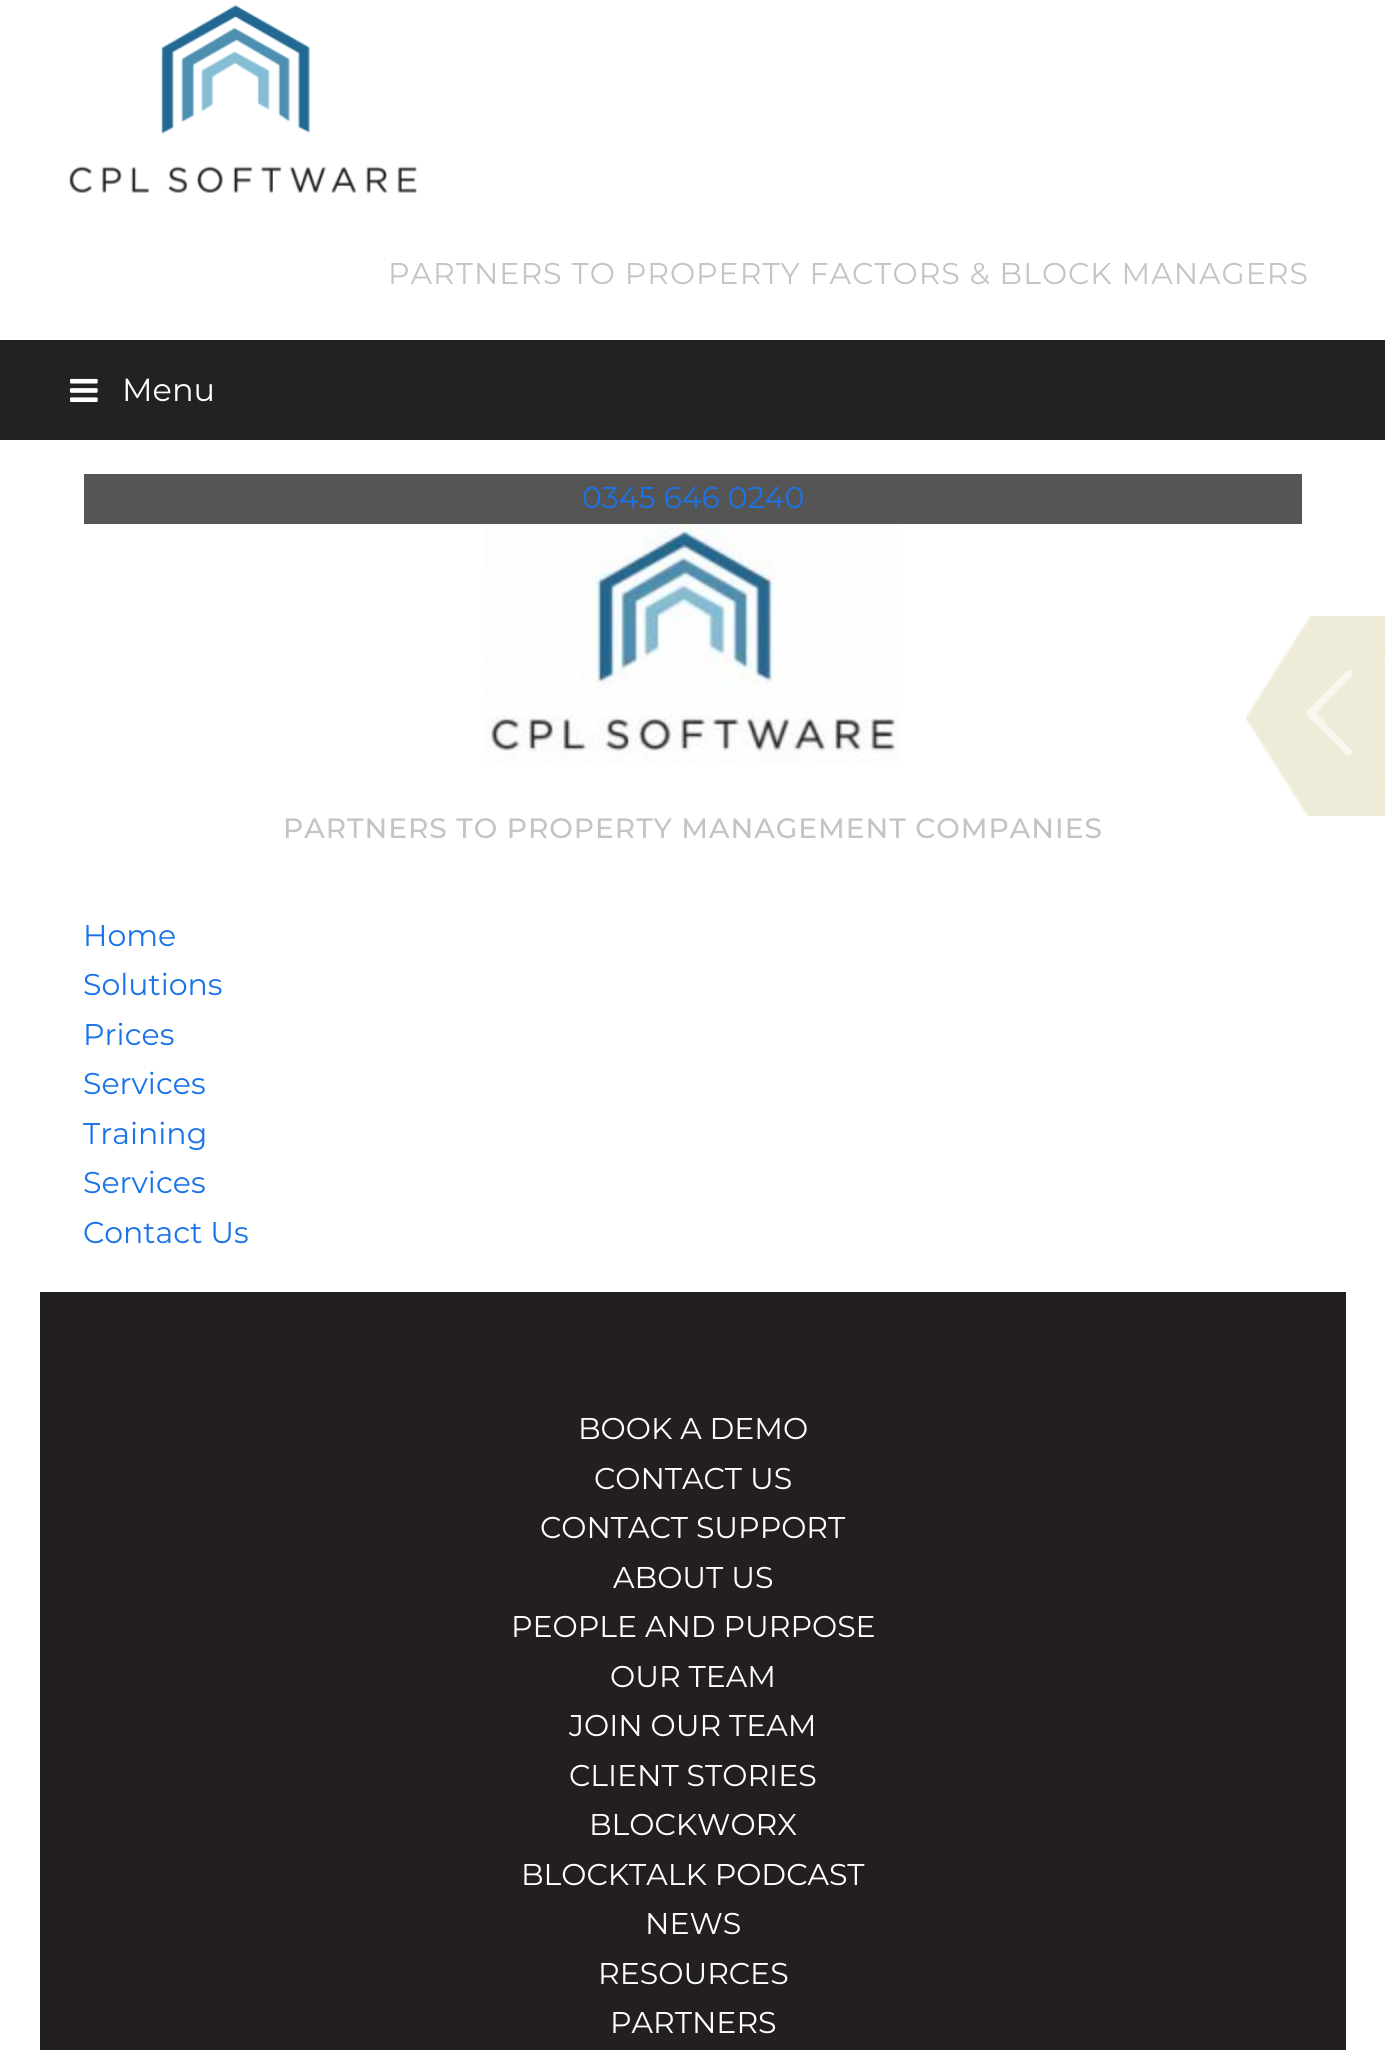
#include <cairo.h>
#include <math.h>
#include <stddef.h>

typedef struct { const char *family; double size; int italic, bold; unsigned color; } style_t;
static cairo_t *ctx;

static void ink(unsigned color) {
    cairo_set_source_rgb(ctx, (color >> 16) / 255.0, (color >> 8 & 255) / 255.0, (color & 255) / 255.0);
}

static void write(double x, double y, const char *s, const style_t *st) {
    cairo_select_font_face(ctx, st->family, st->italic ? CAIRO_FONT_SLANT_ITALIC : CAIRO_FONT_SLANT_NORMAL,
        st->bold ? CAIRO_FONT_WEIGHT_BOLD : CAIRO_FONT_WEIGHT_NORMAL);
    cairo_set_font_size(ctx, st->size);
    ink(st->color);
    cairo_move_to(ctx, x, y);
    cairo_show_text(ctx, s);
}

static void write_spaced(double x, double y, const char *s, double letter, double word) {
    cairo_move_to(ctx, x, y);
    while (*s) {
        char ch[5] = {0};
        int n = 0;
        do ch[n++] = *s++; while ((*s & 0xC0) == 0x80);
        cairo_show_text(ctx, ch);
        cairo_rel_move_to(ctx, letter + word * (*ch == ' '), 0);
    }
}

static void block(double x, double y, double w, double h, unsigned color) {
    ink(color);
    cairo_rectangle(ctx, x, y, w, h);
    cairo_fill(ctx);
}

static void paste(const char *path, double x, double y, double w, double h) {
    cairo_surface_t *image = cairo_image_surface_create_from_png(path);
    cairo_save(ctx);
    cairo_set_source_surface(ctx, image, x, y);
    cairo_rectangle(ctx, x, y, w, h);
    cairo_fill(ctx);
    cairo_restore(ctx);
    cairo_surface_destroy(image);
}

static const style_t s1 = {"Montserrat", 32, 0, 0, 0xffffff};
static const style_t s2 = {"Montserrat", 30, 0, 0, 0x1a73e8};
static const style_t s3 = {"Montserrat", 30, 0, 0, 0xffffff};

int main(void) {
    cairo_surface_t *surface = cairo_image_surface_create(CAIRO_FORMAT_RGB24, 1385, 2050);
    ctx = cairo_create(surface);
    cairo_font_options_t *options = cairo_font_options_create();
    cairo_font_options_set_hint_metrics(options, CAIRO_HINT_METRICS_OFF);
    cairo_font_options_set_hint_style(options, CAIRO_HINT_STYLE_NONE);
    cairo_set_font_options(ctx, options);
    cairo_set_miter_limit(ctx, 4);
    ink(0xffffff);
    cairo_paint(ctx);
    paste("pic1.png", 69, 5, 348, 188);
    cairo_select_font_face(ctx, "Montserrat", CAIRO_FONT_SLANT_NORMAL, CAIRO_FONT_WEIGHT_NORMAL);
    cairo_set_font_size(ctx, 30);
    ink(0xc3c4c6);
    write_spaced(388, 284, "PARTNERS TO PROPERTY FACTORS & BLOCK MANAGERS", 1, 0);
    block(0, 340, 1385, 100, 0x222222);
    paste("pic2.png", 70, 378, 28, 24);
    write(122, 401, "Menu", &s1);
    block(84, 474, 1218, 50, 0x555555);
    write(582, 508, "0345 646 0240", &s2);
    paste("pic3.png", 484, 524, 416, 240);
    cairo_select_font_face(ctx, "Montserrat Medium", CAIRO_FONT_SLANT_NORMAL, CAIRO_FONT_WEIGHT_NORMAL);
    cairo_set_font_size(ctx, 28);
    ink(0xc3c4c6);
    write_spaced(283, 838, "PARTNERS TO PROPERTY MANAGEMENT COMPANIES", 1, 0);
    write(83, 946, "Home", &s2);
    write(83, 995, "Solutions", &s2);
    write(83, 1045, "Prices", &s2);
    write(83, 1094, "Services", &s2);
    write(83, 1144, "Training", &s2);
    write(83, 1193, "Services", &s2);
    write(83, 1243, "Contact Us", &s2);
    block(40, 1292, 1306, 758, 0x231f20);
    write(578, 1439, "BOOK A DEMO", &s3);
    write(594, 1489, "CONTACT US", &s3);
    write(540, 1538, "CONTACT SUPPORT", &s3);
    write(613, 1588, "ABOUT US", &s3);
    write(511, 1637, "PEOPLE AND PURPOSE", &s3);
    write(610, 1687, "OUR TEAM", &s3);
    write(569, 1736, "JOIN OUR TEAM", &s3);
    write(569, 1786, "CLIENT STORIES", &s3);
    write(589, 1835, "BLOCKWORX", &s3);
    write(521, 1885, "BLOCKTALK PODCAST", &s3);
    write(645, 1934, "NEWS", &s3);
    write(598, 1984, "RESOURCES", &s3);
    write(610, 2033, "PARTNERS", &s3);
    paste("pic4.png", 1246, 616, 139, 200);
    ink(0xf8f7ef);
    cairo_new_path(ctx);
    cairo_move_to(ctx, 1351, 750);
    cairo_curve_to(ctx, 1353, 752, 1353, 754, 1351, 755);
    cairo_curve_to(ctx, 1347, 758, 1341, 750, 1340, 748);
    cairo_line_to(ctx, 1314, 722);
    cairo_curve_to(ctx, 1313, 721, 1304, 715, 1307, 711);
    cairo_line_to(ctx, 1347, 671);
    cairo_line_to(ctx, 1349, 670);
    cairo_curve_to(ctx, 1352, 670, 1354, 674, 1352, 676);
    cairo_line_to(ctx, 1316, 713);
    cairo_close_path(ctx);
    cairo_fill(ctx);
    cairo_surface_write_to_png(surface, "screenshot.png");
    cairo_font_options_destroy(options);
    cairo_destroy(ctx);
    cairo_surface_destroy(surface);
    return 0;
}
